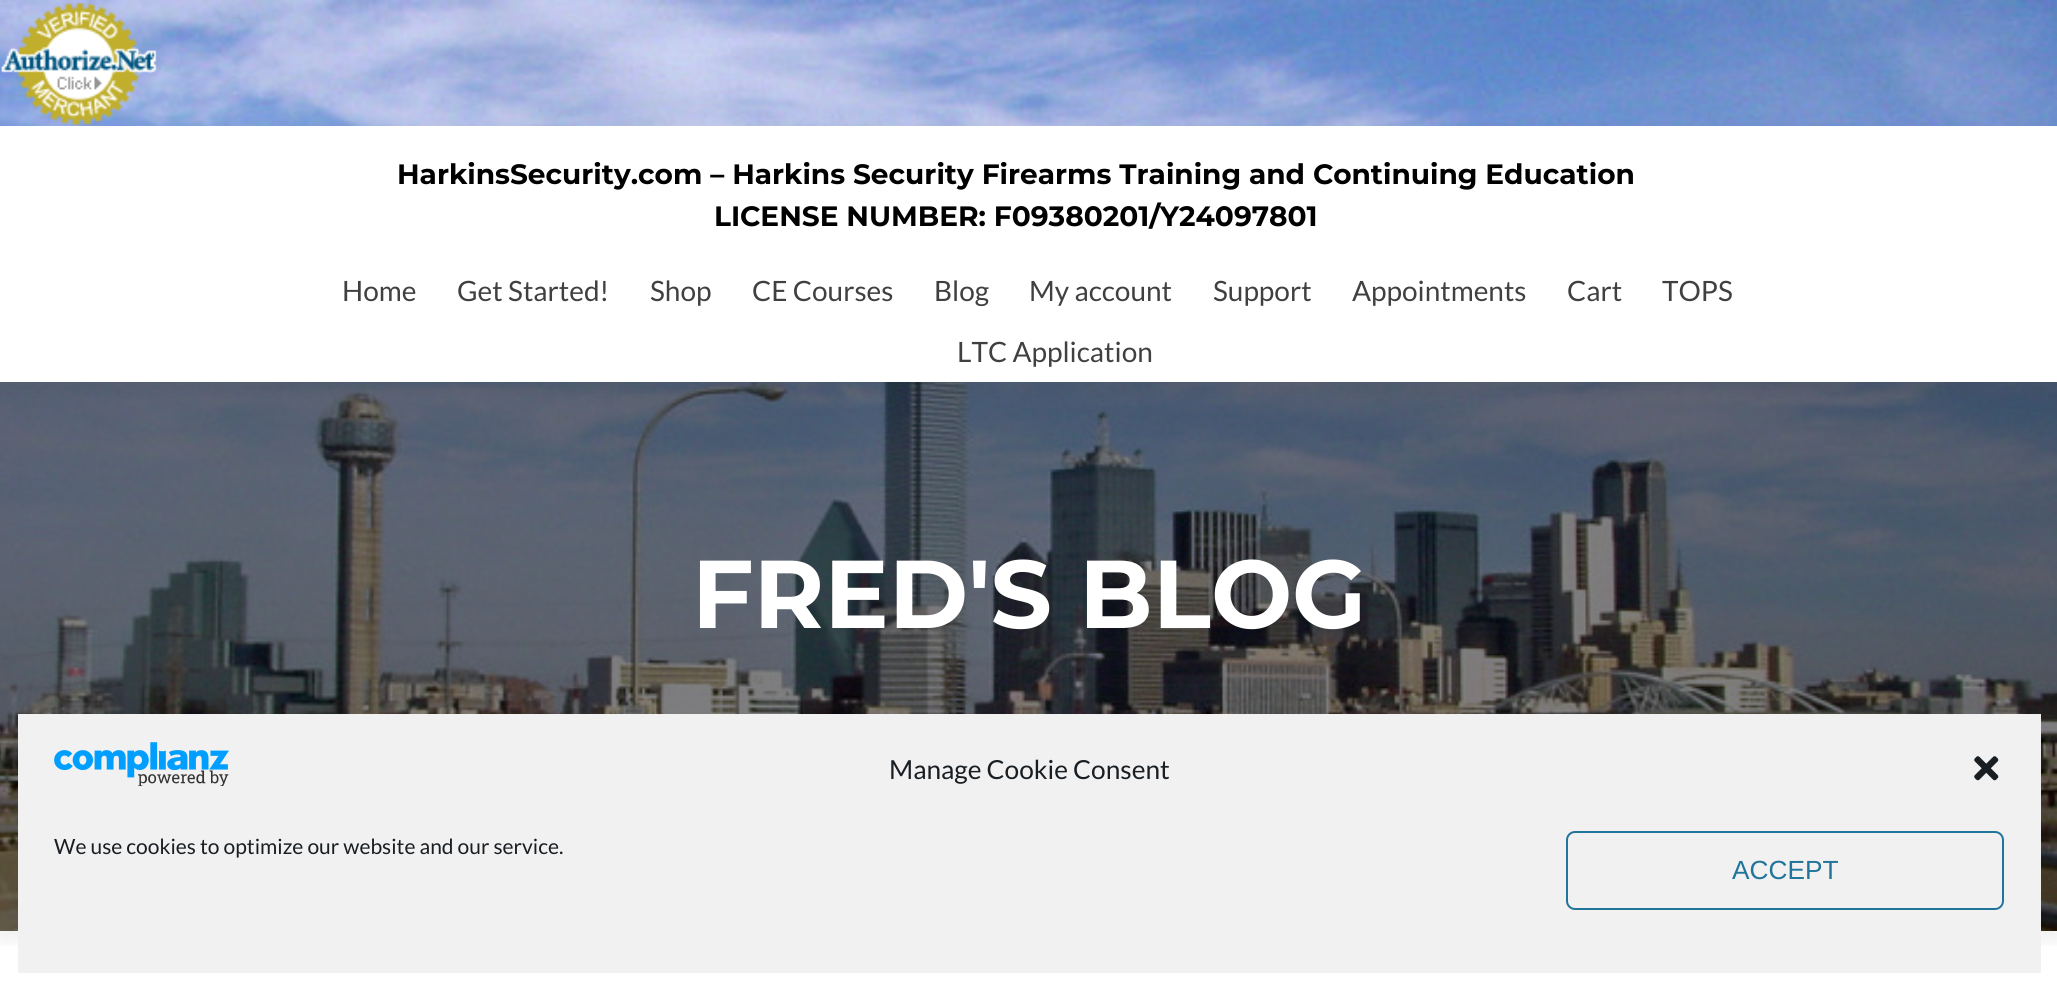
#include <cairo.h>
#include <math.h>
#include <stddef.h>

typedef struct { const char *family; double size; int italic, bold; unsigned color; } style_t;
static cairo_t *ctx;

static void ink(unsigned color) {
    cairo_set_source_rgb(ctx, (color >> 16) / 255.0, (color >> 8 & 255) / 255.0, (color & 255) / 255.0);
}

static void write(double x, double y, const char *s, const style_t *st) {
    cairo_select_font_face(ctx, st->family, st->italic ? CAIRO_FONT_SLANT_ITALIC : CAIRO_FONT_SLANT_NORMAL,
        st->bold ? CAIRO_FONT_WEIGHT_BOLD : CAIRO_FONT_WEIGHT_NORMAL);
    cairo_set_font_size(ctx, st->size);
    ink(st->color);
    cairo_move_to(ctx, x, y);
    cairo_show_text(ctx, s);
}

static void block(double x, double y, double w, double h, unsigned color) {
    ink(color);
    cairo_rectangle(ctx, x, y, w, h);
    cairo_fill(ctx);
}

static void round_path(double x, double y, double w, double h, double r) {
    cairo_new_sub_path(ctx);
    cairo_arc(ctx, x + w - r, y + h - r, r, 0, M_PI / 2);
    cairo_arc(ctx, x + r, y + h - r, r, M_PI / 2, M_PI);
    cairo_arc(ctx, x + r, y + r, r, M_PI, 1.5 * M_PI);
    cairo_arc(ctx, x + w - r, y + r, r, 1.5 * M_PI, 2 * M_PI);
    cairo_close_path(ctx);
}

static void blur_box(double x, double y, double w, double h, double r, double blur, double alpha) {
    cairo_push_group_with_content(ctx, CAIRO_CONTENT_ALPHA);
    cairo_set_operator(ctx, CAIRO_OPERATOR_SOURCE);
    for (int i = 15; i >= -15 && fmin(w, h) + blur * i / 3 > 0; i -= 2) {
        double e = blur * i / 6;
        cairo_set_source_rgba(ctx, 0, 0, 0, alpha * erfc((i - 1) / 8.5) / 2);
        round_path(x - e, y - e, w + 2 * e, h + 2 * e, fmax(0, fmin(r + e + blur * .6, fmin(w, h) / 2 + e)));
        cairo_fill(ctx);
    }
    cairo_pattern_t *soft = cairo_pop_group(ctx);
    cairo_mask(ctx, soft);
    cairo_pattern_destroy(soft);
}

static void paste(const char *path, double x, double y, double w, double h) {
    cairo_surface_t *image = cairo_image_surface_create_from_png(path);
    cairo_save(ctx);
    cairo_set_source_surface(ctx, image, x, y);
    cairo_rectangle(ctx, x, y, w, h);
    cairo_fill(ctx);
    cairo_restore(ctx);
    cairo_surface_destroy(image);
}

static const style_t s1 = {"Montserrat", 28, 0, 1, 0x000000};
static const style_t s2 = {"Lato", 28, 0, 0, 0x404040};
static const style_t s3 = {"Montserrat", 96.25, 0, 1, 0xffffff};
static const style_t s4 = {"Lato", 26.25, 0, 0, 0x191e23};
static const style_t s5 = {"Lato", 21, 0, 0, 0x191e23};
static const style_t s6 = {"Liberation Sans", 26.25, 0, 0, 0x21759b};

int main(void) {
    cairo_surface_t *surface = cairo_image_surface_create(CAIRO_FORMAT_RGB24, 2057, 989);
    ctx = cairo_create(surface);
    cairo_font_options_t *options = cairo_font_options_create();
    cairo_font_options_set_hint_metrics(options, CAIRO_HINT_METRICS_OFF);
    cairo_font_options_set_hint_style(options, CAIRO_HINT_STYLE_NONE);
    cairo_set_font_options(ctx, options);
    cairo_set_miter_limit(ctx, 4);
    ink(0xffffff);
    cairo_paint(ctx);
    paste("pic1.png", 0, 0, 2057, 931);
    paste("pic2.png", 1, 3, 156, 122);
    cairo_save(ctx);
    cairo_rectangle(ctx, 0, 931, 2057, 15);
    cairo_clip(ctx);
    ink(0x323232);
    blur_box(0, 135, 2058, 805, 0, 9.5, 0.08);
    cairo_restore(ctx);
    cairo_set_source_rgba(ctx, 0, 0, 0, 0.5);
    cairo_rectangle(ctx, 0, 382, 2057, 549);
    cairo_fill(ctx);
    ink(0x323232);
    blur_box(0, 135, 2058, 255, 0, 9.5, 0.08);
    block(0, 126, 2057, 256, 0xffffff);
    write(397, 184, "HarkinsSecurity.com – Harkins Security Firearms Training and Continuing Education", &s1);
    write(714, 226, "LICENSE NUMBER: F09380201/Y24097801", &s1);
    write(342, 301, "Home", &s2);
    write(457, 301, "Get Started!", &s2);
    write(650, 301, "Shop", &s2);
    write(752, 301, "CE Courses", &s2);
    write(934, 301, "Blog", &s2);
    write(1029, 301, "My account", &s2);
    write(1213, 301, "Support", &s2);
    write(1352, 301, "Appointments", &s2);
    write(1567, 301, "Cart", &s2);
    write(1662, 301, "TOPS", &s2);
    write(957, 362, "LTC Application", &s2);
    write(692, 628, "FRED'S BLOG", &s3);
    block(18, 714, 2023, 259, 0xf1f1f1);
    paste("pic3.png", 54, 742, 175, 44);
    write(889, 779, "Manage Cookie Consent", &s4);
    paste("pic4.png", 1974, 756, 25, 25);
    write(54, 854, "We use cookies to optimize our website and our service.", &s5);
    round_path(1567, 832, 436, 77, 8);
    ink(0x21759b);
    cairo_stroke(ctx);
    write(1732, 879, "ACCEPT", &s6);
    cairo_surface_write_to_png(surface, "screenshot.png");
    cairo_font_options_destroy(options);
    cairo_destroy(ctx);
    cairo_surface_destroy(surface);
    return 0;
}
